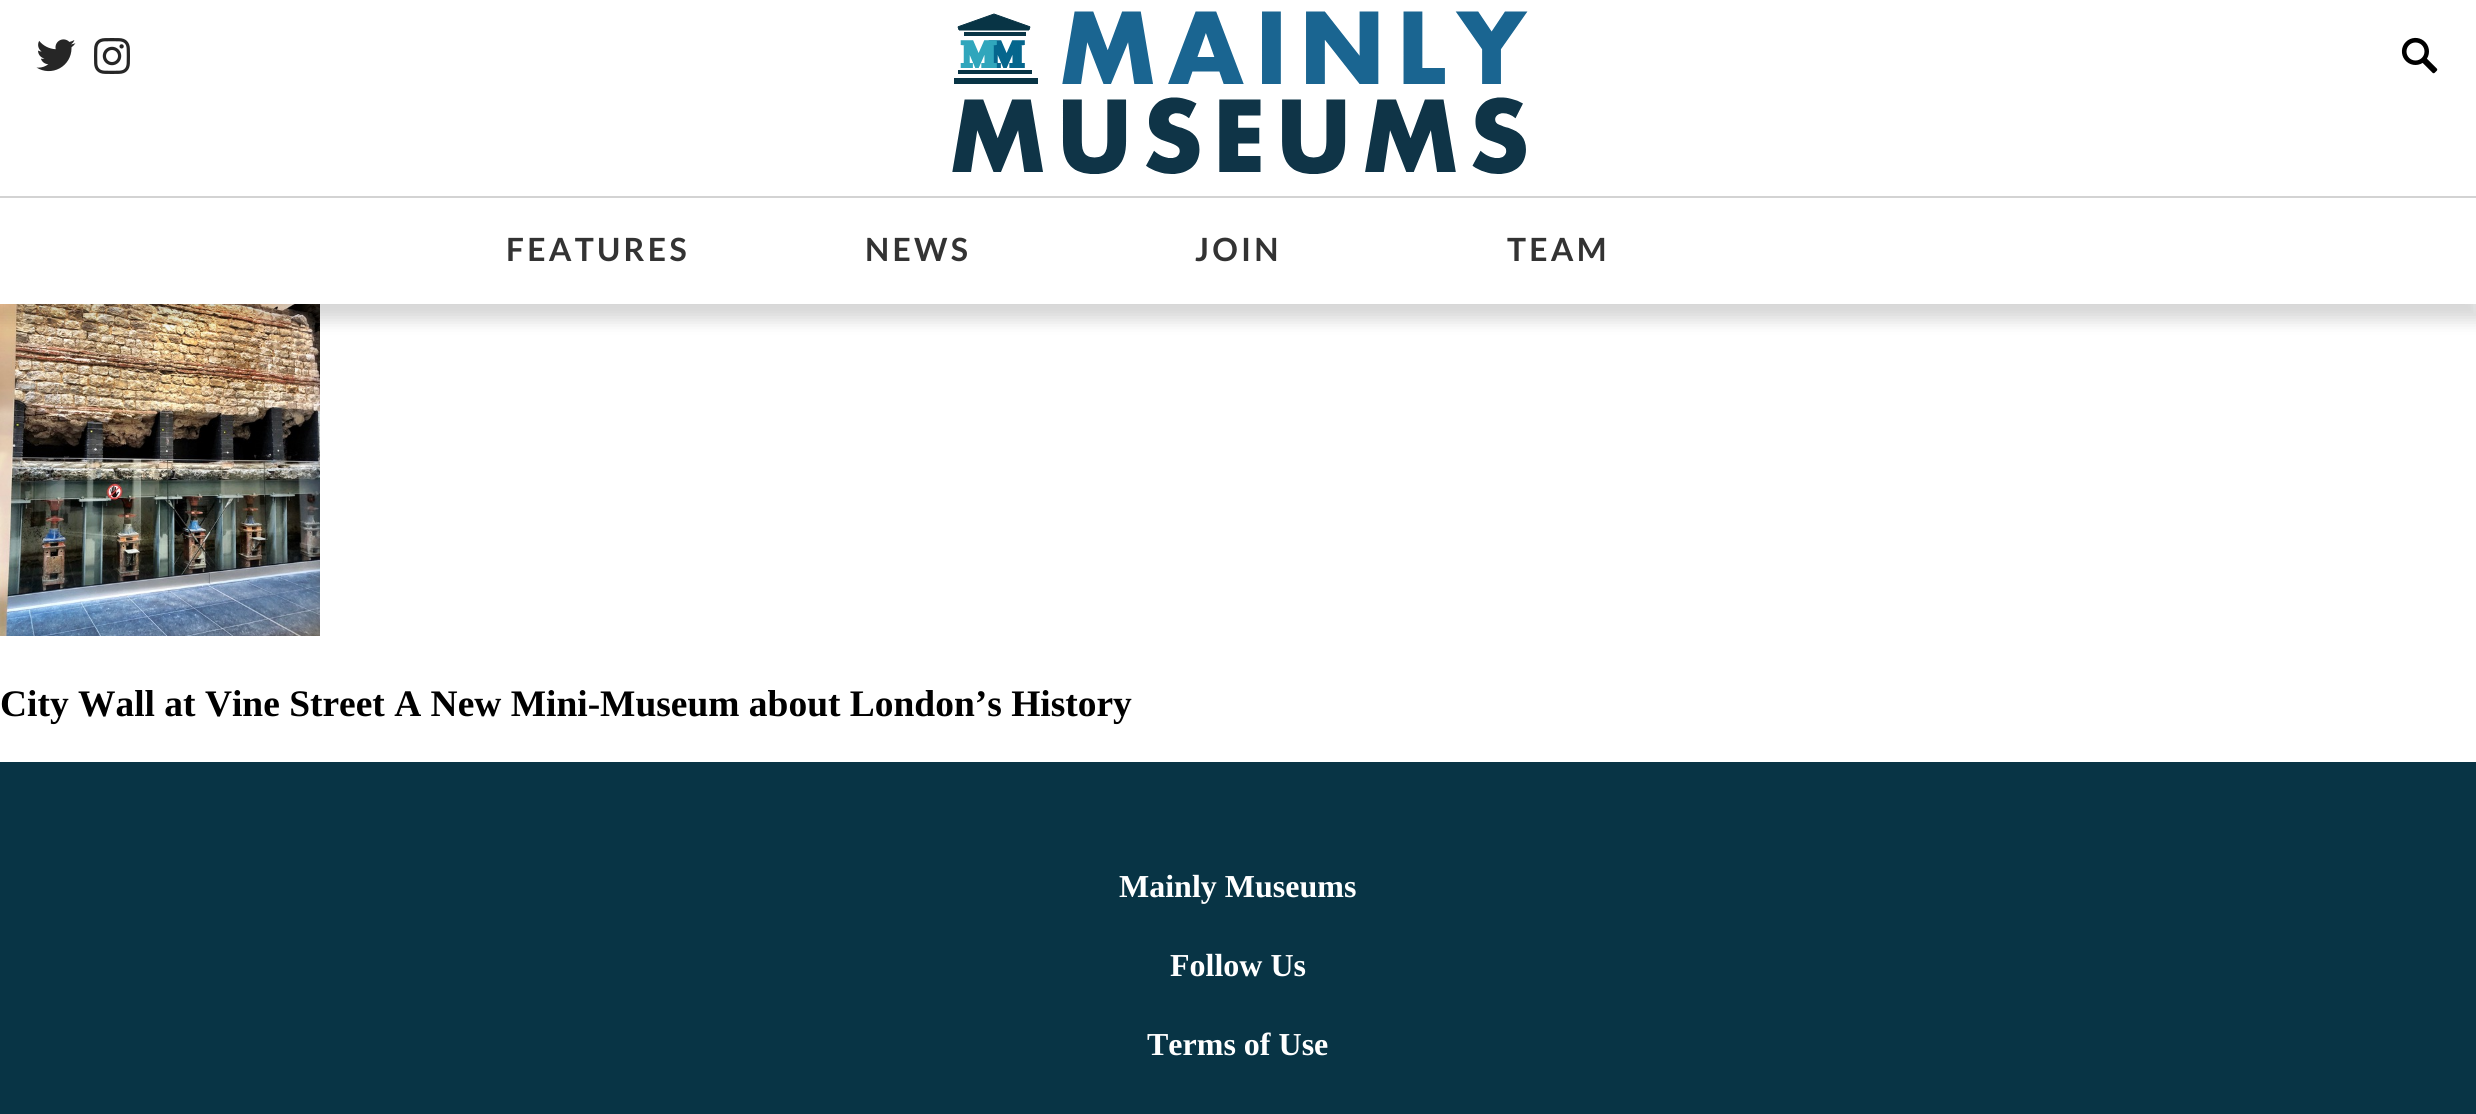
#include <cairo.h>
#include <math.h>
#include <stddef.h>

typedef struct { const char *family; double size; int italic, bold; unsigned color; } style_t;
static cairo_t *ctx;

static void ink(unsigned color) {
    cairo_set_source_rgb(ctx, (color >> 16) / 255.0, (color >> 8 & 255) / 255.0, (color & 255) / 255.0);
}

static void write(double x, double y, const char *s, const style_t *st) {
    cairo_select_font_face(ctx, st->family, st->italic ? CAIRO_FONT_SLANT_ITALIC : CAIRO_FONT_SLANT_NORMAL,
        st->bold ? CAIRO_FONT_WEIGHT_BOLD : CAIRO_FONT_WEIGHT_NORMAL);
    cairo_set_font_size(ctx, st->size);
    ink(st->color);
    cairo_move_to(ctx, x, y);
    cairo_show_text(ctx, s);
}

static void write_spaced(double x, double y, const char *s, double letter, double word) {
    cairo_move_to(ctx, x, y);
    while (*s) {
        char ch[5] = {0};
        int n = 0;
        do ch[n++] = *s++; while ((*s & 0xC0) == 0x80);
        cairo_show_text(ctx, ch);
        cairo_rel_move_to(ctx, letter + word * (*ch == ' '), 0);
    }
}

static void block(double x, double y, double w, double h, unsigned color) {
    ink(color);
    cairo_rectangle(ctx, x, y, w, h);
    cairo_fill(ctx);
}

static void round_path(double x, double y, double w, double h, double r) {
    cairo_new_sub_path(ctx);
    cairo_arc(ctx, x + w - r, y + h - r, r, 0, M_PI / 2);
    cairo_arc(ctx, x + r, y + h - r, r, M_PI / 2, M_PI);
    cairo_arc(ctx, x + r, y + r, r, M_PI, 1.5 * M_PI);
    cairo_arc(ctx, x + w - r, y + r, r, 1.5 * M_PI, 2 * M_PI);
    cairo_close_path(ctx);
}

static void blur_box(double x, double y, double w, double h, double r, double blur, double alpha) {
    cairo_push_group_with_content(ctx, CAIRO_CONTENT_ALPHA);
    cairo_set_operator(ctx, CAIRO_OPERATOR_SOURCE);
    for (int i = 15; i >= -15 && fmin(w, h) + blur * i / 3 > 0; i -= 2) {
        double e = blur * i / 6;
        cairo_set_source_rgba(ctx, 0, 0, 0, alpha * erfc((i - 1) / 8.5) / 2);
        round_path(x - e, y - e, w + 2 * e, h + 2 * e, fmax(0, fmin(r + e + blur * .6, fmin(w, h) / 2 + e)));
        cairo_fill(ctx);
    }
    cairo_pattern_t *soft = cairo_pop_group(ctx);
    cairo_mask(ctx, soft);
    cairo_pattern_destroy(soft);
}

static void paste(const char *path, double x, double y, double w, double h) {
    cairo_surface_t *image = cairo_image_surface_create_from_png(path);
    cairo_save(ctx);
    cairo_set_source_surface(ctx, image, x, y);
    cairo_rectangle(ctx, x, y, w, h);
    cairo_fill(ctx);
    cairo_restore(ctx);
    cairo_surface_destroy(image);
}

static const style_t s1 = {"Liberation Serif", 37.45, 0, 1, 0x000000};
static const style_t s2 = {"Liberation Serif", 32, 0, 1, 0xffffff};

int main(void) {
    cairo_surface_t *surface = cairo_image_surface_create(CAIRO_FORMAT_RGB24, 2476, 1114);
    ctx = cairo_create(surface);
    cairo_font_options_t *options = cairo_font_options_create();
    cairo_font_options_set_hint_metrics(options, CAIRO_HINT_METRICS_OFF);
    cairo_font_options_set_hint_style(options, CAIRO_HINT_STYLE_NONE);
    cairo_set_font_options(ctx, options);
    cairo_set_miter_limit(ctx, 4);
    ink(0xffffff);
    cairo_paint(ctx);
    paste("pic5.png", 0, 304, 320, 332);
    ink(0x000000);
    blur_box(-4, 8, 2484, 312, 0, 8, 0.16);
    block(0, 0, 2476, 304, 0xffffff);
    paste("pic1.png", 36, 39, 40, 33);
    paste("pic2.png", 94, 38, 36, 36);
    paste("pic3.png", 952, 11, 576, 163);
    paste("pic4.png", 2401, 37, 37, 37);
    block(0, 196, 2476, 2, 0xd3d3d3);
    cairo_select_font_face(ctx, "Lato", CAIRO_FONT_SLANT_NORMAL, CAIRO_FONT_WEIGHT_BOLD);
    cairo_set_font_size(ctx, 32);
    ink(0x333333);
    write_spaced(506, 261, "FEATURES", 3.25, 0);
    write_spaced(865, 261, "NEWS", 3.25, 0);
    write_spaced(1195, 261, "JOIN", 3.25, 0);
    write_spaced(1507, 261, "TEAM", 3.25, 0);
    write(0, 716, "City Wall at Vine Street A New Mini-Museum about London’s History", &s1);
    block(0, 762, 2476, 352, 0x083445);
    write(1119, 897, "Mainly Museums", &s2);
    write(1170, 976, "Follow Us", &s2);
    write(1147, 1055, "Terms of Use", &s2);
    cairo_surface_write_to_png(surface, "screenshot.png");
    cairo_font_options_destroy(options);
    cairo_destroy(ctx);
    cairo_surface_destroy(surface);
    return 0;
}
